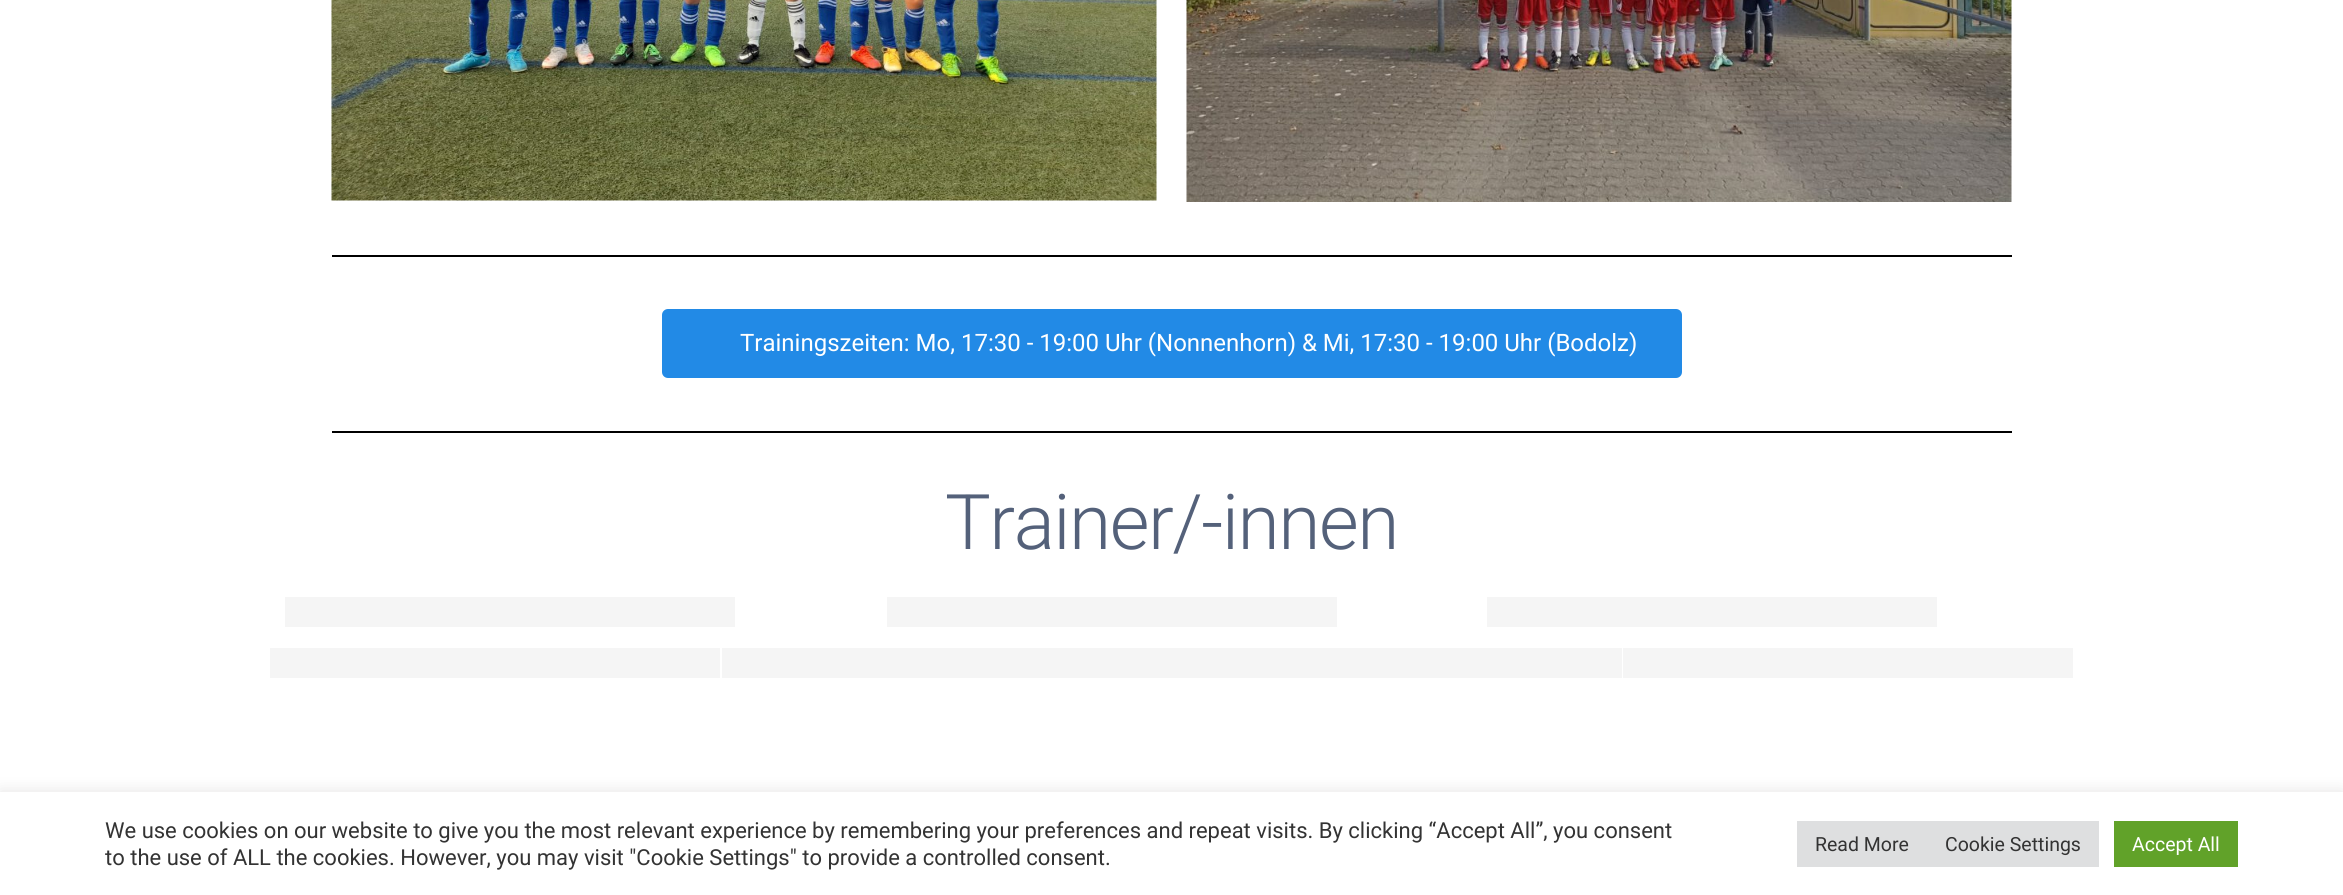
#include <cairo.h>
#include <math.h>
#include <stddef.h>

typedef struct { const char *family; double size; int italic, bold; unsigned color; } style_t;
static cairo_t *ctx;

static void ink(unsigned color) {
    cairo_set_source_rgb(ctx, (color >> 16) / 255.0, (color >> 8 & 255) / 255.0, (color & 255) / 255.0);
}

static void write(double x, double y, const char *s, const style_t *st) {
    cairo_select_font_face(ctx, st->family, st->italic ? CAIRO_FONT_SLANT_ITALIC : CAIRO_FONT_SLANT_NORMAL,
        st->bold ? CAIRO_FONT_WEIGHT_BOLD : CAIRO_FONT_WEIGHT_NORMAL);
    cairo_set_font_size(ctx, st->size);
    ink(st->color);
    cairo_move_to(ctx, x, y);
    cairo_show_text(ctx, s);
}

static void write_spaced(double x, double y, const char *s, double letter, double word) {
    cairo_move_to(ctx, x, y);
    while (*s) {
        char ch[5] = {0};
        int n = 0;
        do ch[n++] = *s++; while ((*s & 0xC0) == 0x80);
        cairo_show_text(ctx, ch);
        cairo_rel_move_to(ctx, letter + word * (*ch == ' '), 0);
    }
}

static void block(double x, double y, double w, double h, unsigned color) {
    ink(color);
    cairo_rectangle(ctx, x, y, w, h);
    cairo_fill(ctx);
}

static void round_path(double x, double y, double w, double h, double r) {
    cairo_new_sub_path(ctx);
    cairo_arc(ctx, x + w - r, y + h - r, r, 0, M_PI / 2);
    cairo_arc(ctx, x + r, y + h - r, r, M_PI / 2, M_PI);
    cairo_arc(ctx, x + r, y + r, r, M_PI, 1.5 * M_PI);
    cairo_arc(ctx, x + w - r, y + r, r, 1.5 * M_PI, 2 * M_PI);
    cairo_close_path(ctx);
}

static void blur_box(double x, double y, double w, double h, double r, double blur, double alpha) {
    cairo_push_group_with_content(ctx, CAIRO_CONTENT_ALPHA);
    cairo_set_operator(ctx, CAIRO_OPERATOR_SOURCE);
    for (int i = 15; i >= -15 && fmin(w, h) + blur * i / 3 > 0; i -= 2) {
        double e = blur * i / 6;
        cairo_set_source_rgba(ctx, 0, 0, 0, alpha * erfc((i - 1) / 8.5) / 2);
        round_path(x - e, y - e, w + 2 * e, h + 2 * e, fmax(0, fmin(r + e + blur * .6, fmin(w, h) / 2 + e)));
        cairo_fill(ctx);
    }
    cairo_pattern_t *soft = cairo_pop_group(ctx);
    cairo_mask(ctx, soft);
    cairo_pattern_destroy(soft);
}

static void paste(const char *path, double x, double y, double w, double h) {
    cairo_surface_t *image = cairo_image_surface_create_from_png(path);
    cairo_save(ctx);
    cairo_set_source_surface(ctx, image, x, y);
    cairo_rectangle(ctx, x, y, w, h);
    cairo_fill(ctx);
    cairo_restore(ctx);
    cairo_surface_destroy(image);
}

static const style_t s1 = {"Roboto", 24, 0, 0, 0xffffff};
static const style_t s2 = {"Roboto", 22, 0, 0, 0x333333};
static const style_t s3 = {"Roboto", 19.5, 0, 0, 0x333333};
static const style_t s4 = {"Roboto", 19.5, 0, 0, 0xffffff};

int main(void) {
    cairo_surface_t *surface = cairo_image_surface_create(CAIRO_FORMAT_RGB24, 2343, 895);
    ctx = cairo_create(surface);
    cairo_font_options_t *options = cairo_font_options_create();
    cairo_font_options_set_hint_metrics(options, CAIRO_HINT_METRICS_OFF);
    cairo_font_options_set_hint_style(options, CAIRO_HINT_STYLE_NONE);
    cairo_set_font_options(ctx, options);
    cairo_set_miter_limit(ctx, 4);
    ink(0xffffff);
    cairo_paint(ctx);
    paste("pic1.png", 331, 0, 826, 201);
    paste("pic2.png", 1186, 0, 826, 202);
    block(332, 255, 1680, 2, 0x000000);
    ink(0x228ae6);
    round_path(662, 309, 1020, 69, 6);
    cairo_fill(ctx);
    write(740, 351, "Trainingszeiten: Mo, 17:30 - 19:00 Uhr (Nonnenhorn) & Mi, 17:30 - 19:00 Uhr (Bodolz)", &s1);
    block(332, 431, 1680, 2, 0x000000);
    cairo_select_font_face(ctx, "Roboto Light", CAIRO_FONT_SLANT_NORMAL, CAIRO_FONT_WEIGHT_NORMAL);
    cairo_set_font_size(ctx, 76.75);
    ink(0x54617a);
    write_spaced(945, 549, "Trainer/-innen", -1.5, 0);
    block(285, 597, 450, 30, 0xf5f5f5);
    block(887, 597, 450, 30, 0xf5f5f5);
    block(1487, 597, 450, 30, 0xf5f5f5);
    block(270, 648, 450, 30, 0xf5f5f5);
    block(722, 648, 900, 30, 0xf5f5f5);
    block(1623, 648, 450, 30, 0xf5f5f5);
    ink(0xacabab);
    blur_box(0, 791, 2343, 103, 0, 7.5, 0.3);
    block(0, 792, 2343, 103, 0xffffff);
    write(105, 838, "We use cookies on our website to give you the most relevant experience by remembering your preferences and repeat visits. By clicking “Accept All”, you consent", &s2);
    write(105, 865, "to the use of ALL the cookies. However, you may visit \"Cookie Settings\" to provide a controlled consent.", &s2);
    block(1797, 821, 302, 46, 0xdedfe0);
    write(1815, 851, "Read More", &s3);
    write(1945, 851, "Cookie Settings", &s3);
    block(2114, 821, 124, 46, 0x61a229);
    write(2132, 851, "Accept All", &s4);
    cairo_surface_write_to_png(surface, "screenshot.png");
    cairo_font_options_destroy(options);
    cairo_destroy(ctx);
    cairo_surface_destroy(surface);
    return 0;
}
